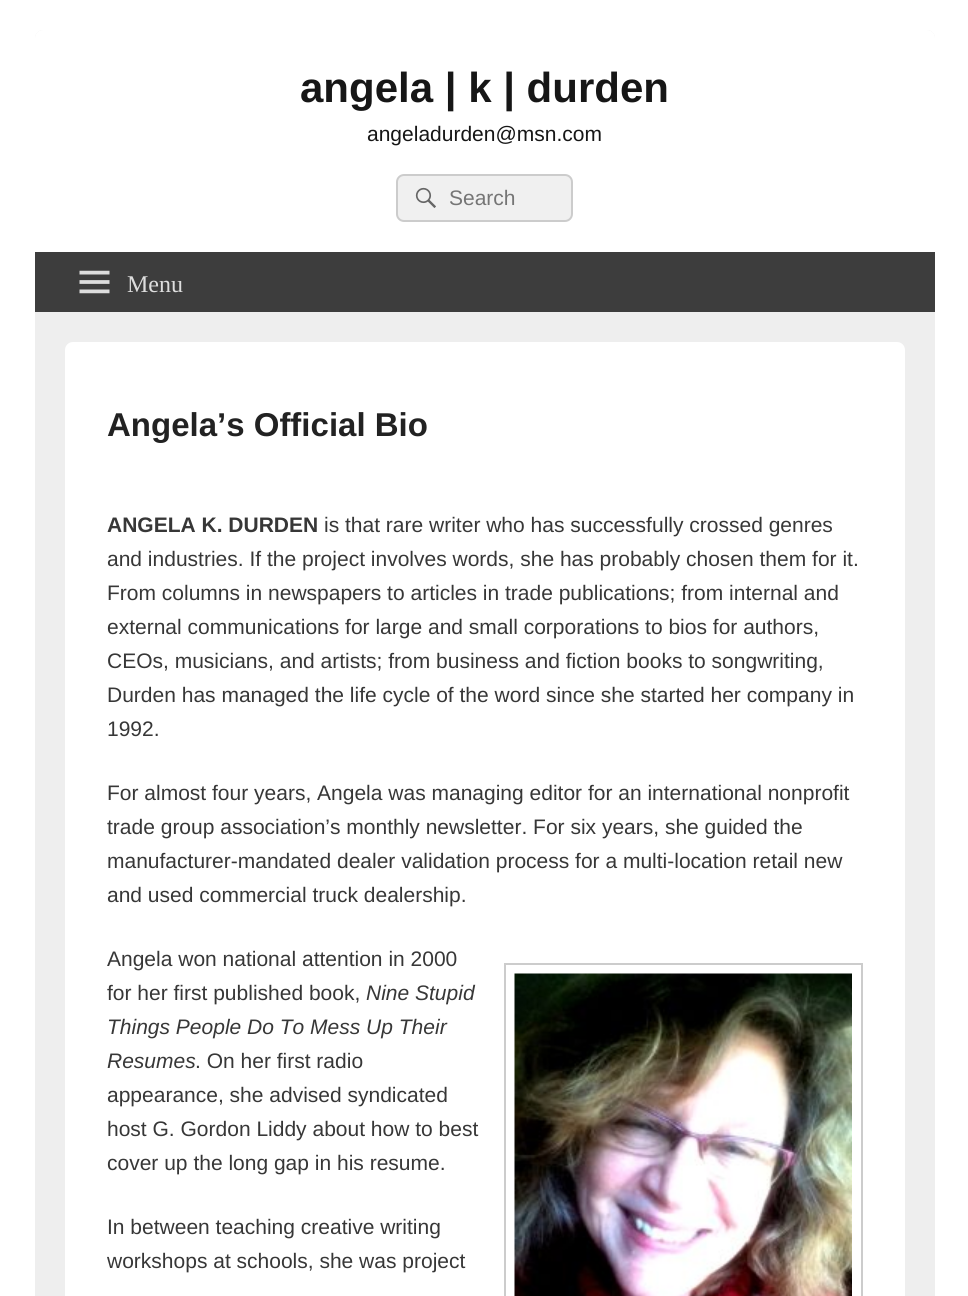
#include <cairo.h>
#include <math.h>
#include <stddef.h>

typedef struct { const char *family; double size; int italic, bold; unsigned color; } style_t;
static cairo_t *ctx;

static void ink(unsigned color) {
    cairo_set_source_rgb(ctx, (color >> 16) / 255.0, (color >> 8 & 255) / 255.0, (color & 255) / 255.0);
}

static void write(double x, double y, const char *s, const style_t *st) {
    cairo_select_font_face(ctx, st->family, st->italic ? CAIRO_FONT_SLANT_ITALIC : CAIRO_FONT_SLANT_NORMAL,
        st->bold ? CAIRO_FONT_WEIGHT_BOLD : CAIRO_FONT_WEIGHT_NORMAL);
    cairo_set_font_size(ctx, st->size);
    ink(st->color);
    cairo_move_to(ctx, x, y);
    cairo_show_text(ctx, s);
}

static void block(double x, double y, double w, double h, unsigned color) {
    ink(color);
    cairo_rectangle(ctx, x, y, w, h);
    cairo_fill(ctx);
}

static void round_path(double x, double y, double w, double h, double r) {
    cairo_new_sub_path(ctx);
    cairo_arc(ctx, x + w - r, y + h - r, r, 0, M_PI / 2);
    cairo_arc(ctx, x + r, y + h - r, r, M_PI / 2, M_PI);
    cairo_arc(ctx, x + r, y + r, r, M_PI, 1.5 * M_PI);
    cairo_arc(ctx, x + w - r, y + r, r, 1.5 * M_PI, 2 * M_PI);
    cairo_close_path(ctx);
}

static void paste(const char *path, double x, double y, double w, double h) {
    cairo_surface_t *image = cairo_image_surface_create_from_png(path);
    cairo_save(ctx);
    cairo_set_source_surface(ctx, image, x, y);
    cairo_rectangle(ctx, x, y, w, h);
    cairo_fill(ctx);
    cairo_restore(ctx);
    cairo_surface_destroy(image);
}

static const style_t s1 = {"Liberation Sans", 42, 0, 1, 0x161616};
static const style_t s2 = {"Liberation Sans", 21, 0, 0, 0x161616};
static const style_t s3 = {"Liberation Sans", 21, 0, 0, 0x757575};
static const style_t s4 = {"Liberation Serif", 24, 0, 0, 0xdddddd};
static const style_t s5 = {"Liberation Sans", 33, 0, 1, 0x222222};
static const style_t s6 = {"Liberation Sans", 21, 0, 1, 0x373737};
static const style_t s7 = {"Liberation Sans", 21, 0, 0, 0x373737};
static const style_t s8 = {"Liberation Sans", 21, 1, 0, 0x373737};

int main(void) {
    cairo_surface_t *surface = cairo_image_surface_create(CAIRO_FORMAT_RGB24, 968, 1296);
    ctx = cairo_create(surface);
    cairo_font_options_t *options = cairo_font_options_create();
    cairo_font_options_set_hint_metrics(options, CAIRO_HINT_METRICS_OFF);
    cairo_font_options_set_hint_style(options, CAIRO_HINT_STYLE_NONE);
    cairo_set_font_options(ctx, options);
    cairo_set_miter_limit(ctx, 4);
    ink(0xffffff);
    cairo_paint(ctx);
    ink(0xeeeeee);
    round_path(35, 30, 900, 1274, 8);
    cairo_fill(ctx);
    ink(0xffffff);
    cairo_new_path(ctx);
    cairo_move_to(ctx, 43, 30);
    cairo_line_to(ctx, 927, 30);
    cairo_curve_to(ctx, 931.5, 30, 935, 33.5, 935, 38);
    cairo_line_to(ctx, 935, 312);
    cairo_line_to(ctx, 35, 312);
    cairo_line_to(ctx, 35, 38);
    cairo_curve_to(ctx, 35, 33.5, 38.5, 30, 43, 30);
    cairo_close_path(ctx);
    cairo_fill(ctx);
    write(300, 102, "angela | k | durden", &s1);
    write(367, 141, "angeladurden@msn.com", &s2);
    ink(0xf0f0f0);
    round_path(397, 175, 175, 46, 7);
    cairo_fill_preserve(ctx);
    ink(0xcccccc);
    cairo_stroke(ctx);
    paste("pic1.png", 415, 187, 21, 21);
    write(449, 205, "Search", &s3);
    block(35, 252, 900, 60, 0x3d3d3d);
    paste("pic2.png", 79, 270, 31, 24);
    write(127, 292, "Menu", &s4);
    ink(0xffffff);
    round_path(65, 342, 840, 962, 8);
    cairo_fill(ctx);
    write(107, 436, "Angela’s Official Bio", &s5);
    write(107, 532, "ANGELA K. DURDEN", &s6);
    write(324, 532, "is that rare writer who has successfully crossed genres", &s7);
    write(107, 566, "and industries. If the project involves words, she has probably chosen them for it.", &s7);
    write(107, 600, "From columns in newspapers to articles in trade publications; from internal and", &s7);
    write(107, 634, "external communications for large and small corporations to bios for authors,", &s7);
    write(107, 668, "CEOs, musicians, and artists; from business and fiction books to songwriting,", &s7);
    write(107, 702, "Durden has managed the life cycle of the word since she started her company in", &s7);
    write(107, 736, "1992.", &s7);
    write(107, 800, "For almost four years, Angela was managing editor for an international nonprofit", &s7);
    write(107, 834, "trade group association’s monthly newsletter. For six years, she guided the", &s7);
    write(107, 868, "manufacturer-mandated dealer validation process for a multi-location retail new", &s7);
    write(107, 902, "and used commercial truck dealership.", &s7);
    write(107, 966, "Angela won national attention in 2000", &s7);
    write(107, 1000, "for her first published book,", &s7);
    write(366, 1000, "Nine Stupid", &s8);
    write(107, 1034, "Things People Do To Mess Up Their", &s8);
    write(107, 1068, "Resumes", &s8);
    write(195, 1068, ". On her first radio", &s7);
    write(107, 1102, "appearance, she advised syndicated", &s7);
    write(107, 1136, "host G. Gordon Liddy about how to best", &s7);
    write(107, 1170, "cover up the long gap in his resume.", &s7);
    cairo_rectangle(ctx, 505, 964, 357, 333);
    ink(0xcccccc);
    cairo_stroke(ctx);
    paste("pic3.png", 514, 973, 338, 323);
    write(107, 1234, "In between teaching creative writing", &s7);
    write(107, 1268, "workshops at schools, she was project", &s7);
    cairo_surface_write_to_png(surface, "screenshot.png");
    cairo_font_options_destroy(options);
    cairo_destroy(ctx);
    cairo_surface_destroy(surface);
    return 0;
}
